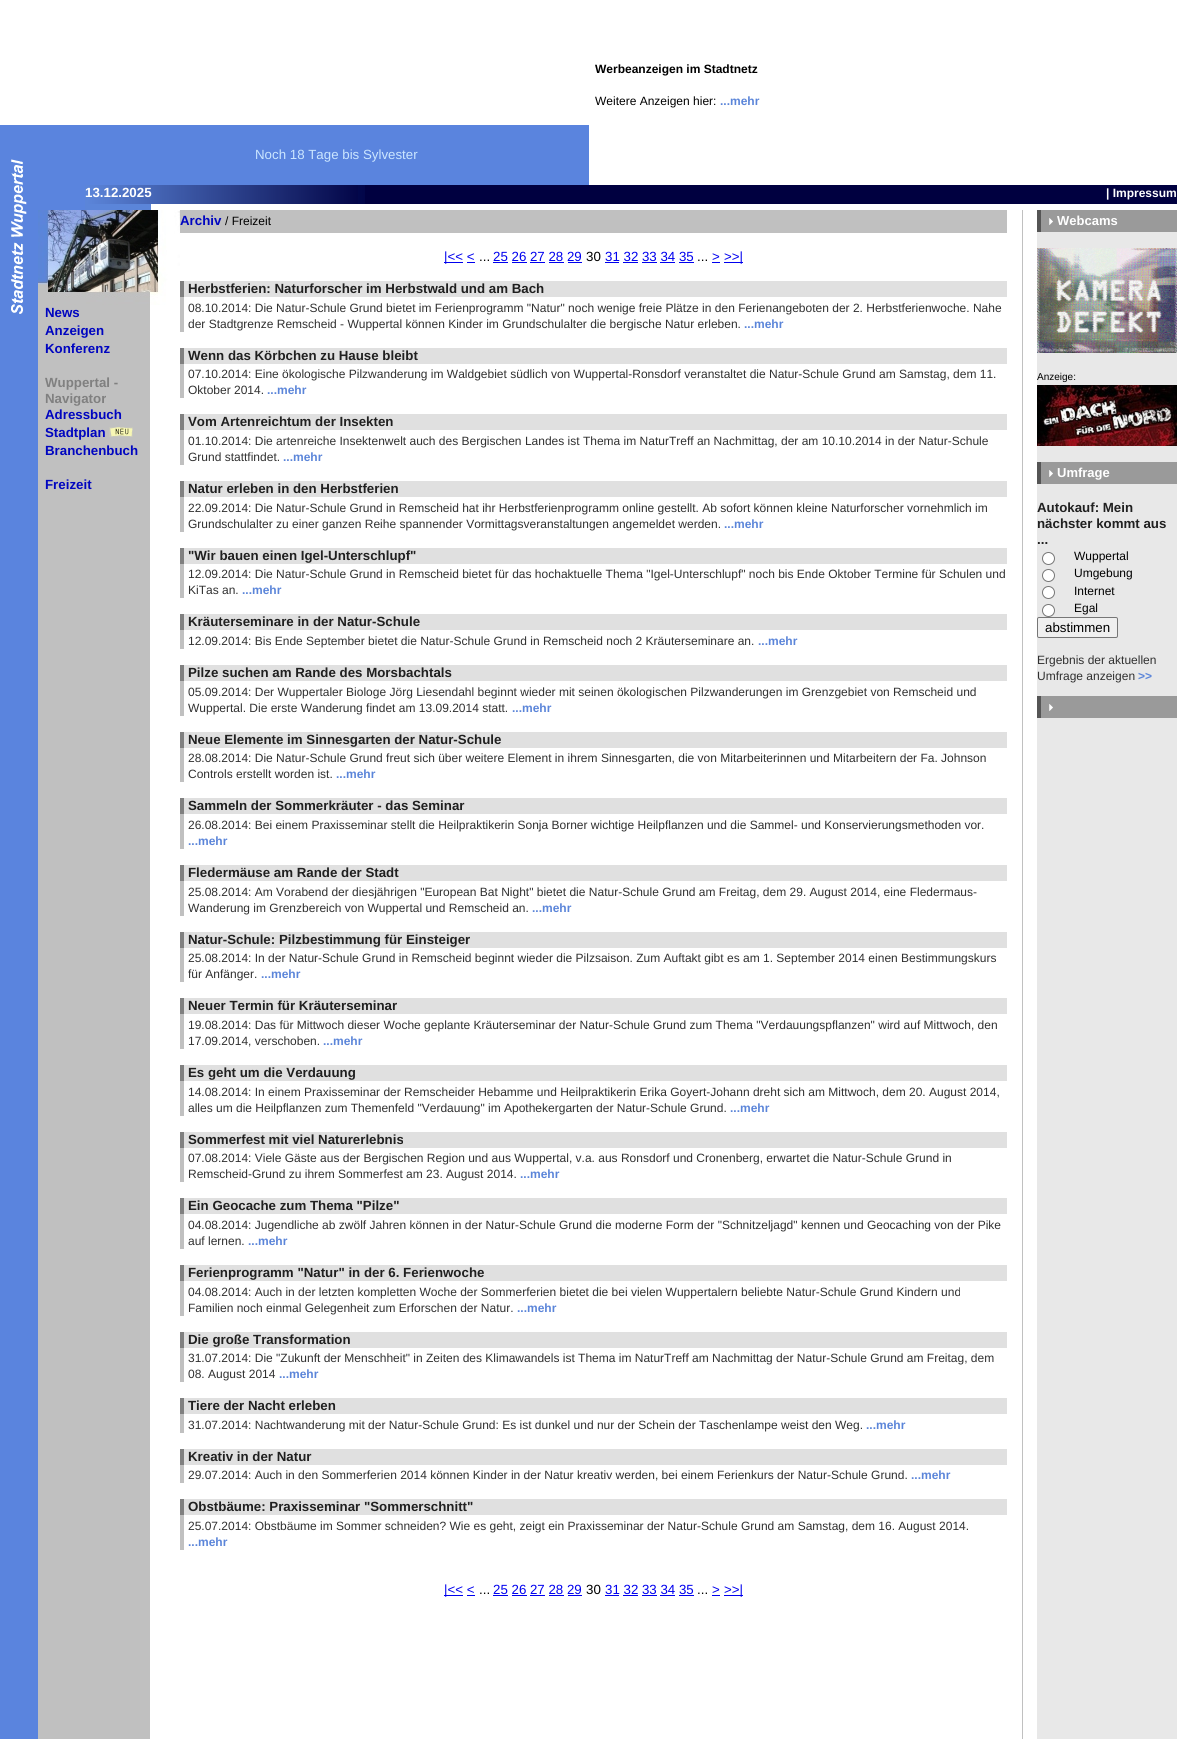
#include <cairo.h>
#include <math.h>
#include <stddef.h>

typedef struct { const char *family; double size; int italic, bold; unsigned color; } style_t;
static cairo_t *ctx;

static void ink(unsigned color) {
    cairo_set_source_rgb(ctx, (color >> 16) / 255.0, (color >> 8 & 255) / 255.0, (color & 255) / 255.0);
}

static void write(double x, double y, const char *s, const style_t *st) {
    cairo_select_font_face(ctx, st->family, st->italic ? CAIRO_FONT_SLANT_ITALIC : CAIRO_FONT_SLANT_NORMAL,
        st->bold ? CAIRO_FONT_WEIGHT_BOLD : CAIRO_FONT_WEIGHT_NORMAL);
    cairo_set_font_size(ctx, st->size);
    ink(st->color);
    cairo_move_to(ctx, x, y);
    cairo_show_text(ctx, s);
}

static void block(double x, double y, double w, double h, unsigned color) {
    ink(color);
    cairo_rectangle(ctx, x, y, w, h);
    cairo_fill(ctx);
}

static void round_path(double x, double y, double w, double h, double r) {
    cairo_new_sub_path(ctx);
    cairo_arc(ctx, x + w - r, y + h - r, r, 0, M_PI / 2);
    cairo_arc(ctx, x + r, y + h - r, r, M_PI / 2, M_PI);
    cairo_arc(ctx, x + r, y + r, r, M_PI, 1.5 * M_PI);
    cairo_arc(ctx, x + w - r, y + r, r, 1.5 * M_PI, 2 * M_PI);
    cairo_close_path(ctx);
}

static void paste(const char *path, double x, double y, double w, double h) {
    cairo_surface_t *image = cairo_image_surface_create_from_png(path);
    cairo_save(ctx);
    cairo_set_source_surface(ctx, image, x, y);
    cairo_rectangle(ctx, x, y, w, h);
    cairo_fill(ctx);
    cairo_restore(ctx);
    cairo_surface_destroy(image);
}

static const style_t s1 = {"Liberation Sans", 13.3, 0, 0, 0xcbe6ff};
static const style_t s2 = {"Liberation Sans", 13.3, 0, 1, 0xffffff};
static const style_t s3 = {"Liberation Sans", 12, 0, 1, 0x000000};
static const style_t s4 = {"Liberation Sans", 12, 0, 0, 0x000000};
static const style_t s5 = {"Liberation Sans", 12, 0, 1, 0x5b85d9};
static const style_t s6 = {"Liberation Sans", 12, 0, 1, 0xffffff};
static const style_t s7 = {"Liberation Sans", 13.3, 0, 1, 0x0005c0};
static const style_t s8 = {"Liberation Sans", 13.3, 0, 1, 0x808080};
static const style_t s9 = {"Liberation Sans", 13.3, 0, 0, 0x0000ee};
static const style_t s10 = {"Liberation Sans", 13.3, 0, 0, 0x000000};
static const style_t s11 = {"Liberation Sans", 13.3, 0, 1, 0x202020};
static const style_t s12 = {"Liberation Sans", 12, 0, 0, 0x303030};
static const style_t s13 = {"Liberation Sans", 13, 0, 1, 0xffffff};
static const style_t s14 = {"Liberation Sans", 10, 0, 0, 0x000000};

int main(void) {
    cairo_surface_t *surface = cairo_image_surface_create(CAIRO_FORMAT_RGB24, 1177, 1739);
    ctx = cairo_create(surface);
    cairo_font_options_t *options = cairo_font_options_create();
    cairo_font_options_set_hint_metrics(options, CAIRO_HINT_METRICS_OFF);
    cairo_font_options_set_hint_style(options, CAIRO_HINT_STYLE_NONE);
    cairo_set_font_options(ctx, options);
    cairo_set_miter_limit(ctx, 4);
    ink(0xffffff);
    cairo_paint(ctx);
    block(0, 125, 589, 85, 0x5a84de);
    write(255, 159, "Noch 18 Tage bis Sylvester", &s1);
    paste("pic1.png", 11, 159, 16, 51);
    paste("pic2.png", 85, 185, 280, 25);
    write(85, 197, "13.12.2025", &s2);
    paste("pic3.png", 365, 185, 224, 25);
    write(595, 73, "Werbeanzeigen im Stadtnetz", &s3);
    write(595, 105, "Weitere Anzeigen hier:", &s4);
    write(720, 105, "...mehr", &s5);
    block(589, 185, 588, 19, 0x000040);
    write(1106, 197, "| Impressum", &s6);
    block(0, 210, 38, 1529, 0x5a84de);
    paste("pic4.png", 11, 210, 16, 104);
    block(38, 305, 112, 1434, 0xc0c0c0);
    paste("pic5.png", 38, 210, 142, 95);
    write(45, 317, "News", &s7);
    write(45, 335, "Anzeigen", &s7);
    write(45, 353, "Konferenz", &s7);
    write(45, 387, "Wuppertal -", &s8);
    write(45, 403, "Navigator", &s8);
    write(45, 419, "Adressbuch", &s7);
    write(45, 437, "Stadtplan", &s7);
    paste("pic6.png", 109, 427, 24, 10);
    write(45, 455, "Branchenbuch", &s7);
    write(45, 489, "Freizeit", &s7);
    block(180, 210, 827, 23, 0xc0c0c0);
    write(180, 225, "Archiv", &s7);
    write(225, 225, "/ Freizeit", &s4);
    block(444, 262, 19, 1, 0x0000ee);
    write(444, 261, "|<< <", &s9);
    write(479, 261, "...", &s10);
    write(493, 261, "25 26 27 28 29", &s9);
    block(493, 262, 15, 1, 0x0000ee);
    write(586, 261, "30", &s10);
    write(605, 261, "31 32 33 34 35", &s9);
    block(605, 262, 14, 1, 0x0000ee);
    write(697, 261, "...", &s10);
    write(712, 261, ">", &s9);
    block(712, 262, 8, 1, 0x0000ee);
    block(724, 262, 19, 1, 0x0000ee);
    write(724, 261, ">>|", &s9);
    block(467, 262, 8, 1, 0x0000ee);
    block(512, 262, 15, 1, 0x0000ee);
    block(530, 262, 15, 1, 0x0000ee);
    block(549, 262, 15, 1, 0x0000ee);
    block(568, 262, 14, 1, 0x0000ee);
    block(623, 262, 15, 1, 0x0000ee);
    block(642, 262, 15, 1, 0x0000ee);
    block(660, 262, 15, 1, 0x0000ee);
    block(679, 262, 15, 1, 0x0000ee);
    block(180, 281, 4, 16, 0x808080);
    block(184, 281, 823, 16, 0xe0e0e0);
    write(188, 293, "Herbstferien: Naturforscher im Herbstwald und am Bach", &s11);
    block(180, 297, 4, 35, 0xc0c0c0);
    write(188, 312, "08.10.2014: Die Natur-Schule Grund bietet im Ferienprogramm \"Natur\" noch wenige freie Plätze in den Ferienangeboten der 2. Herbstferienwoche. Nahe", &s12);
    write(188, 328, "der Stadtgrenze Remscheid - Wuppertal können Kinder im Grundschulalter die bergische Natur erleben.", &s12);
    write(744, 328, "...mehr", &s5);
    block(180, 348, 4, 16, 0x808080);
    block(184, 348, 823, 16, 0xe0e0e0);
    write(188, 360, "Wenn das Körbchen zu Hause bleibt", &s11);
    block(180, 364, 4, 34, 0xc0c0c0);
    write(188, 378, "07.10.2014: Eine ökologische Pilzwanderung im Waldgebiet südlich von Wuppertal-Ronsdorf veranstaltet die Natur-Schule Grund am Samstag, dem 11.", &s12);
    write(188, 394, "Oktober 2014.", &s12);
    write(267, 394, "...mehr", &s5);
    block(180, 414, 4, 16, 0x808080);
    block(184, 414, 823, 16, 0xe0e0e0);
    write(188, 426, "Vom Artenreichtum der Insekten", &s11);
    block(180, 430, 4, 35, 0xc0c0c0);
    write(188, 445, "01.10.2014: Die artenreiche Insektenwelt auch des Bergischen Landes ist Thema im NaturTreff an Nachmittag, der am 10.10.2014 in der Natur-Schule", &s12);
    write(188, 461, "Grund stattfindet.", &s12);
    write(283, 461, "...mehr", &s5);
    block(180, 481, 4, 16, 0x808080);
    block(184, 481, 823, 16, 0xe0e0e0);
    write(188, 493, "Natur erleben in den Herbstferien", &s11);
    block(180, 497, 4, 35, 0xc0c0c0);
    write(188, 512, "22.09.2014: Die Natur-Schule Grund in Remscheid hat ihr Herbstferienprogramm online gestellt. Ab sofort können kleine Naturforscher vornehmlich im", &s12);
    write(188, 528, "Grundschulalter zu einer ganzen Reihe spannender Vormittagsveranstaltungen angemeldet werden.", &s12);
    write(724, 528, "...mehr", &s5);
    block(180, 548, 4, 16, 0x808080);
    block(184, 548, 823, 16, 0xe0e0e0);
    write(188, 560, "\"Wir bauen einen Igel-Unterschlupf\"", &s11);
    block(180, 564, 4, 34, 0xc0c0c0);
    write(188, 578, "12.09.2014: Die Natur-Schule Grund in Remscheid bietet für das hochaktuelle Thema \"Igel-Unterschlupf\" noch bis Ende Oktober Termine für Schulen und", &s12);
    write(188, 594, "KiTas an.", &s12);
    write(242, 594, "...mehr", &s5);
    block(180, 614, 4, 16, 0x808080);
    block(184, 614, 823, 16, 0xe0e0e0);
    write(188, 626, "Kräuterseminare in der Natur-Schule", &s11);
    block(180, 630, 4, 19, 0xc0c0c0);
    write(188, 645, "12.09.2014: Bis Ende September bietet die Natur-Schule Grund in Remscheid noch 2 Kräuterseminare an.", &s12);
    write(758, 645, "...mehr", &s5);
    block(180, 665, 4, 16, 0x808080);
    block(184, 665, 823, 16, 0xe0e0e0);
    write(188, 677, "Pilze suchen am Rande des Morsbachtals", &s11);
    block(180, 681, 4, 35, 0xc0c0c0);
    write(188, 696, "05.09.2014: Der Wuppertaler Biologe Jörg Liesendahl beginnt wieder mit seinen ökologischen Pilzwanderungen im Grenzgebiet von Remscheid und", &s12);
    write(188, 712, "Wuppertal. Die erste Wanderung findet am 13.09.2014 statt.", &s12);
    write(512, 712, "...mehr", &s5);
    block(180, 732, 4, 16, 0x808080);
    block(184, 732, 823, 16, 0xe0e0e0);
    write(188, 744, "Neue Elemente im Sinnesgarten der Natur-Schule", &s11);
    block(180, 748, 4, 34, 0xc0c0c0);
    write(188, 762, "28.08.2014: Die Natur-Schule Grund freut sich über weitere Element in ihrem Sinnesgarten, die von Mitarbeiterinnen und Mitarbeitern der Fa. Johnson", &s12);
    write(188, 778, "Controls erstellt worden ist.", &s12);
    write(336, 778, "...mehr", &s5);
    block(180, 798, 4, 16, 0x808080);
    block(184, 798, 823, 16, 0xe0e0e0);
    write(188, 810, "Sammeln der Sommerkräuter - das Seminar", &s11);
    block(180, 814, 4, 35, 0xc0c0c0);
    write(188, 829, "26.08.2014: Bei einem Praxisseminar stellt die Heilpraktikerin Sonja Borner wichtige Heilpflanzen und die Sammel- und Konservierungsmethoden vor.", &s12);
    write(188, 845, "...mehr", &s5);
    block(180, 865, 4, 16, 0x808080);
    block(184, 865, 823, 16, 0xe0e0e0);
    write(188, 877, "Fledermäuse am Rande der Stadt", &s11);
    block(180, 881, 4, 35, 0xc0c0c0);
    write(188, 896, "25.08.2014: Am Vorabend der diesjährigen \"European Bat Night\" bietet die Natur-Schule Grund am Freitag, dem 29. August 2014, eine Fledermaus-", &s12);
    write(188, 912, "Wanderung im Grenzbereich von Wuppertal und Remscheid an.", &s12);
    write(532, 912, "...mehr", &s5);
    block(180, 932, 4, 16, 0x808080);
    block(184, 932, 823, 16, 0xe0e0e0);
    write(188, 944, "Natur-Schule: Pilzbestimmung für Einsteiger", &s11);
    block(180, 948, 4, 34, 0xc0c0c0);
    write(188, 962, "25.08.2014: In der Natur-Schule Grund in Remscheid beginnt wieder die Pilzsaison. Zum Auftakt gibt es am 1. September 2014 einen Bestimmungskurs", &s12);
    write(188, 978, "für Anfänger.", &s12);
    write(261, 978, "...mehr", &s5);
    block(180, 998, 4, 16, 0x808080);
    block(184, 998, 823, 16, 0xe0e0e0);
    write(188, 1010, "Neuer Termin für Kräuterseminar", &s11);
    block(180, 1014, 4, 35, 0xc0c0c0);
    write(188, 1029, "19.08.2014: Das für Mittwoch dieser Woche geplante Kräuterseminar der Natur-Schule Grund zum Thema \"Verdauungspflanzen\" wird auf Mittwoch, den", &s12);
    write(188, 1045, "17.09.2014, verschoben.", &s12);
    write(323, 1045, "...mehr", &s5);
    block(180, 1065, 4, 16, 0x808080);
    block(184, 1065, 823, 16, 0xe0e0e0);
    write(188, 1077, "Es geht um die Verdauung", &s11);
    block(180, 1081, 4, 35, 0xc0c0c0);
    write(188, 1096, "14.08.2014: In einem Praxisseminar der Remscheider Hebamme und Heilpraktikerin Erika Goyert-Johann dreht sich am Mittwoch, dem 20. August 2014,", &s12);
    write(188, 1112, "alles um die Heilpflanzen zum Themenfeld \"Verdauung\" im Apothekergarten der Natur-Schule Grund.", &s12);
    write(730, 1112, "...mehr", &s5);
    block(180, 1132, 4, 16, 0x808080);
    block(184, 1132, 823, 16, 0xe0e0e0);
    write(188, 1144, "Sommerfest mit viel Naturerlebnis", &s11);
    block(180, 1148, 4, 34, 0xc0c0c0);
    write(188, 1162, "07.08.2014: Viele Gäste aus der Bergischen Region und aus Wuppertal, v.a. aus Ronsdorf und Cronenberg, erwartet die Natur-Schule Grund in", &s12);
    write(188, 1178, "Remscheid-Grund zu ihrem Sommerfest am 23. August 2014.", &s12);
    write(520, 1178, "...mehr", &s5);
    block(180, 1198, 4, 16, 0x808080);
    block(184, 1198, 823, 16, 0xe0e0e0);
    write(188, 1210, "Ein Geocache zum Thema \"Pilze\"", &s11);
    block(180, 1214, 4, 35, 0xc0c0c0);
    write(188, 1229, "04.08.2014: Jugendliche ab zwölf Jahren können in der Natur-Schule Grund die moderne Form der \"Schnitzeljagd\" kennen und Geocaching von der Pike", &s12);
    write(188, 1245, "auf lernen.", &s12);
    write(248, 1245, "...mehr", &s5);
    block(180, 1265, 4, 16, 0x808080);
    block(184, 1265, 823, 16, 0xe0e0e0);
    write(188, 1277, "Ferienprogramm \"Natur\" in der 6. Ferienwoche", &s11);
    block(180, 1281, 4, 35, 0xc0c0c0);
    write(188, 1296, "04.08.2014: Auch in der letzten kompletten Woche der Sommerferien bietet die bei vielen Wuppertalern beliebte Natur-Schule Grund Kindern und", &s12);
    write(188, 1312, "Familien noch einmal Gelegenheit zum Erforschen der Natur.", &s12);
    write(517, 1312, "...mehr", &s5);
    block(180, 1332, 4, 16, 0x808080);
    block(184, 1332, 823, 16, 0xe0e0e0);
    write(188, 1344, "Die große Transformation", &s11);
    block(180, 1348, 4, 34, 0xc0c0c0);
    write(188, 1362, "31.07.2014: Die \"Zukunft der Menschheit\" in Zeiten des Klimawandels ist Thema im NaturTreff am Nachmittag der Natur-Schule Grund am Freitag, dem", &s12);
    write(188, 1378, "08. August 2014", &s12);
    write(279, 1378, "...mehr", &s5);
    block(180, 1398, 4, 16, 0x808080);
    block(184, 1398, 823, 16, 0xe0e0e0);
    write(188, 1410, "Tiere der Nacht erleben", &s11);
    block(180, 1414, 4, 19, 0xc0c0c0);
    write(188, 1429, "31.07.2014: Nachtwanderung mit der Natur-Schule Grund: Es ist dunkel und nur der Schein der Taschenlampe weist den Weg.", &s12);
    write(866, 1429, "...mehr", &s5);
    block(180, 1449, 4, 16, 0x808080);
    block(184, 1449, 823, 16, 0xe0e0e0);
    write(188, 1461, "Kreativ in der Natur", &s11);
    block(180, 1465, 4, 18, 0xc0c0c0);
    write(188, 1479, "29.07.2014: Auch in den Sommerferien 2014 können Kinder in der Natur kreativ werden, bei einem Ferienkurs der Natur-Schule Grund.", &s12);
    write(911, 1479, "...mehr", &s5);
    block(180, 1499, 4, 16, 0x808080);
    block(184, 1499, 823, 16, 0xe0e0e0);
    write(188, 1511, "Obstbäume: Praxisseminar \"Sommerschnitt\"", &s11);
    block(180, 1515, 4, 35, 0xc0c0c0);
    write(188, 1530, "25.07.2014: Obstbäume im Sommer schneiden? Wie es geht, zeigt ein Praxisseminar der Natur-Schule Grund am Samstag, dem 16. August 2014.", &s12);
    write(188, 1546, "...mehr", &s5);
    block(444, 1595, 19, 1, 0x0000ee);
    write(444, 1594, "|<< <", &s9);
    write(479, 1594, "...", &s10);
    write(493, 1594, "25 26 27 28 29", &s9);
    block(493, 1595, 15, 1, 0x0000ee);
    write(586, 1594, "30", &s10);
    write(605, 1594, "31 32 33 34 35", &s9);
    block(605, 1595, 14, 1, 0x0000ee);
    write(697, 1594, "...", &s10);
    write(712, 1594, ">", &s9);
    block(712, 1595, 8, 1, 0x0000ee);
    block(724, 1595, 19, 1, 0x0000ee);
    write(724, 1594, ">>|", &s9);
    block(467, 1595, 8, 1, 0x0000ee);
    block(512, 1595, 15, 1, 0x0000ee);
    block(530, 1595, 15, 1, 0x0000ee);
    block(549, 1595, 15, 1, 0x0000ee);
    block(568, 1595, 14, 1, 0x0000ee);
    block(623, 1595, 15, 1, 0x0000ee);
    block(642, 1595, 15, 1, 0x0000ee);
    block(660, 1595, 15, 1, 0x0000ee);
    block(679, 1595, 15, 1, 0x0000ee);
    block(1022, 210, 1, 1529, 0xc0c0c0);
    block(1037, 232, 140, 1507, 0xe8e8e8);
    paste("pic7.png", 1037, 210, 20, 22);
    block(1057, 210, 120, 22, 0x9a9a9a);
    write(1057, 225, "Webcams", &s13);
    paste("pic8.png", 1037, 248, 140, 105);
    write(1037, 380, "Anzeige:", &s14);
    paste("pic9.png", 1037, 385, 140, 61);
    paste("pic7.png", 1037, 462, 20, 22);
    block(1057, 462, 120, 22, 0x9a9a9a);
    write(1057, 477, "Umfrage", &s13);
    write(1037, 512, "Autokauf: Mein", &s11);
    write(1037, 528, "nächster kommt aus", &s11);
    write(1037, 544, "...", &s11);
    ink(0xffffff);
    cairo_new_path(ctx);
    cairo_arc(ctx, 1048.5, 558.5, 6, 0, 2 * M_PI);
    cairo_fill_preserve(ctx);
    ink(0x767676);
    cairo_set_line_width(ctx, 1);
    cairo_stroke(ctx);
    write(1074, 560, "Wuppertal", &s4);
    ink(0xffffff);
    cairo_new_path(ctx);
    cairo_arc(ctx, 1048.5, 575.5, 6, 0, 2 * M_PI);
    cairo_fill_preserve(ctx);
    ink(0x767676);
    cairo_stroke(ctx);
    write(1074, 577, "Umgebung", &s4);
    ink(0xffffff);
    cairo_new_path(ctx);
    cairo_arc(ctx, 1048.5, 592.5, 6, 0, 2 * M_PI);
    cairo_fill_preserve(ctx);
    ink(0x767676);
    cairo_stroke(ctx);
    write(1074, 595, "Internet", &s4);
    ink(0xffffff);
    cairo_new_path(ctx);
    cairo_arc(ctx, 1048.5, 610.5, 6, 0, 2 * M_PI);
    cairo_fill_preserve(ctx);
    ink(0x767676);
    cairo_stroke(ctx);
    write(1074, 612, "Egal", &s4);
    ink(0xefefef);
    round_path(1037.5, 617.5, 80, 20, 1.5);
    cairo_fill_preserve(ctx);
    ink(0x767676);
    cairo_stroke(ctx);
    write(1045, 632, "abstimmen", &s10);
    write(1037, 664, "Ergebnis der aktuellen", &s12);
    write(1037, 680, "Umfrage anzeigen", &s12);
    write(1138, 680, ">>", &s5);
    paste("pic7.png", 1037, 696, 20, 22);
    block(1057, 696, 120, 22, 0x9a9a9a);
    cairo_surface_write_to_png(surface, "screenshot.png");
    cairo_font_options_destroy(options);
    cairo_destroy(ctx);
    cairo_surface_destroy(surface);
    return 0;
}
